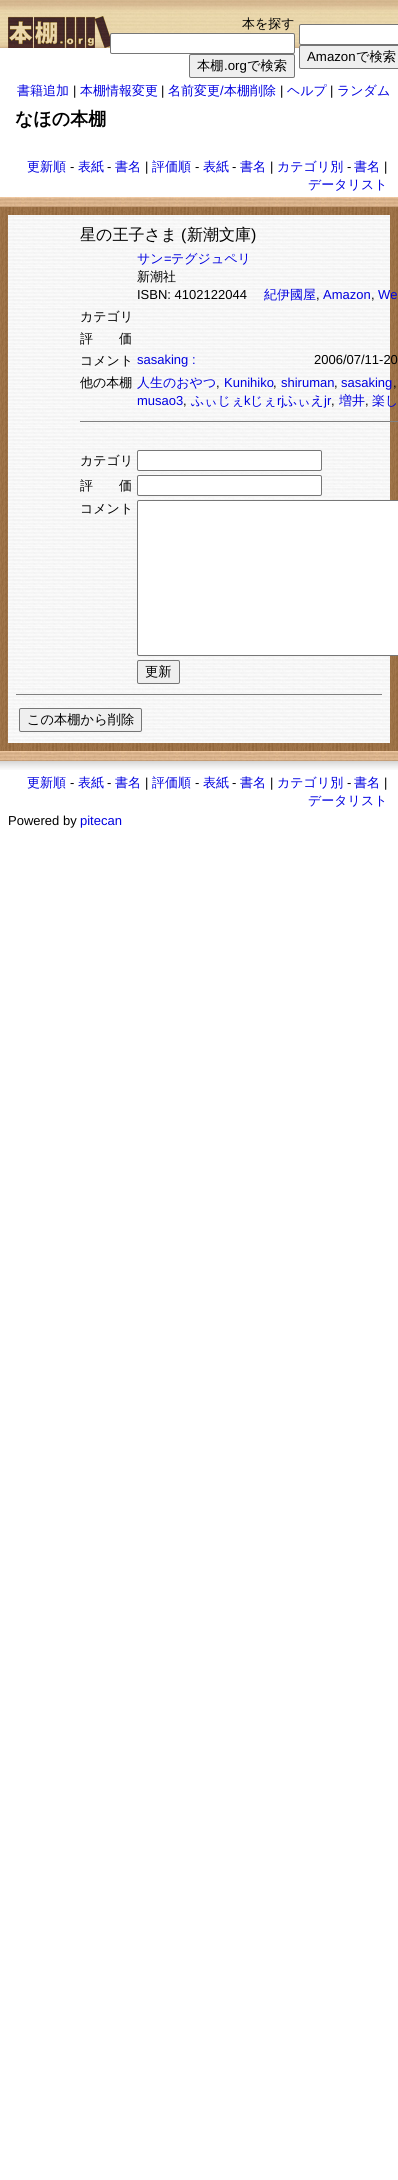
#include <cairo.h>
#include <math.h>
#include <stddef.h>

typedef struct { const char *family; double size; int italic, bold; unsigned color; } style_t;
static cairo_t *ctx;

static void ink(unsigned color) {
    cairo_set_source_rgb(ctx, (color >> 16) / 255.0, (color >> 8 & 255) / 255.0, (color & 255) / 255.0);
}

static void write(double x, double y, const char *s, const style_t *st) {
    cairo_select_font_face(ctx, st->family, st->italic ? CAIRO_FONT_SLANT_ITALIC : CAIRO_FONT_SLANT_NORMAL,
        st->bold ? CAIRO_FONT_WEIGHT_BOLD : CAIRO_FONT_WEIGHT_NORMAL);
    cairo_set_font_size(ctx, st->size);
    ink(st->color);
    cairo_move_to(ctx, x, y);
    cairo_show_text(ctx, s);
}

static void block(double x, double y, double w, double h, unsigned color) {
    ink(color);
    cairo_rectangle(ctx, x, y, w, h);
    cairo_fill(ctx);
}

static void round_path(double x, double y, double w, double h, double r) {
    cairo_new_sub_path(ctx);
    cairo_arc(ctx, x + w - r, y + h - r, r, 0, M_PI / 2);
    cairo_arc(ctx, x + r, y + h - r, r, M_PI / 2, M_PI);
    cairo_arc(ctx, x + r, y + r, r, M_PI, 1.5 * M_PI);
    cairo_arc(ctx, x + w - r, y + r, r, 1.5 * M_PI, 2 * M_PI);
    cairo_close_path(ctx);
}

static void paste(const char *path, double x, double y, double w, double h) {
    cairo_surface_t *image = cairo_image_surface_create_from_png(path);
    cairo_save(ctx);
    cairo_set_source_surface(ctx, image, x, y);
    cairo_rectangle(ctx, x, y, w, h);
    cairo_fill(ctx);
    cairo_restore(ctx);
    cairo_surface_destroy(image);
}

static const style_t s1 = {"WenQuanYi Zen Hei Medium", 13, 0, 0, 0x000000};
static const style_t s2 = {"WenQuanYi Zen Hei Medium", 13.25, 0, 0, 0x000000};
static const style_t s3 = {"Liberation Sans", 13.25, 0, 0, 0x000000};
static const style_t s4 = {"WenQuanYi Zen Hei Medium", 13, 0, 0, 0x0000e0};
static const style_t s5 = {"Liberation Sans", 13, 0, 0, 0x000000};
static const style_t s6 = {"Liberation Sans", 13, 0, 0, 0x0000e0};
static const style_t s7 = {"WenQuanYi Zen Hei", 18, 0, 1, 0x000000};
static const style_t s8 = {"WenQuanYi Zen Hei Medium", 16, 0, 0, 0x000000};
static const style_t s9 = {"Liberation Sans", 16, 0, 0, 0x000000};

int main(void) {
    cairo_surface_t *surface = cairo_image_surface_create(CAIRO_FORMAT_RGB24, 398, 2180);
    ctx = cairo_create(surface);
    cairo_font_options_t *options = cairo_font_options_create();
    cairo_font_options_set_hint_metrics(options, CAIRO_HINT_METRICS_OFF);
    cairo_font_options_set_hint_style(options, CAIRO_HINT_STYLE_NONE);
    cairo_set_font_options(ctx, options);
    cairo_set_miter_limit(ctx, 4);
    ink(0xffffff);
    cairo_paint(ctx);
    paste("pic1.png", 0, 0, 398, 48);
    write(242, 28, "本を探す", &s1);
    ink(0xffffff);
    round_path(110.5, 33.5, 184, 20, 1.5);
    cairo_fill_preserve(ctx);
    ink(0x767676);
    cairo_set_line_width(ctx, 1);
    cairo_stroke(ctx);
    ink(0xefefef);
    round_path(189.5, 54.5, 105, 23, 1.5);
    cairo_fill_preserve(ctx);
    ink(0x767676);
    cairo_stroke(ctx);
    write(197, 70, "本棚", &s2);
    write(224, 70, ".org", &s3);
    write(247, 70, "で検索", &s2);
    ink(0xffffff);
    round_path(299.5, 24.5, 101, 20, 1.5);
    cairo_fill_preserve(ctx);
    ink(0x767676);
    cairo_stroke(ctx);
    ink(0xefefef);
    round_path(299.5, 45.5, 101, 23, 1.5);
    cairo_fill_preserve(ctx);
    ink(0x767676);
    cairo_stroke(ctx);
    write(307, 61, "Amazon", &s3);
    write(356, 61, "で検索", &s2);
    write(17, 95, "書籍追加", &s4);
    write(73, 95, "|", &s5);
    write(80, 95, "本棚情報変更", &s4);
    write(161, 95, "|", &s5);
    write(168, 95, "名前変更", &s4);
    write(220, 95, "/", &s6);
    write(224, 95, "本棚削除", &s4);
    write(280, 95, "|", &s5);
    write(287, 95, "ヘルプ", &s4);
    write(330, 95, "|", &s5);
    write(337, 95, "ランダム", &s4);
    write(15, 125, "なほの本棚", &s7);
    write(27, 171, "更新順", &s4);
    write(70, 171, "-", &s5);
    write(78, 171, "表紙", &s4);
    write(107, 171, "-", &s5);
    write(115, 171, "書名", &s4);
    write(145, 171, "|", &s5);
    write(152, 171, "評価順", &s4);
    write(195, 171, "-", &s5);
    write(203, 171, "表紙", &s4);
    write(232, 171, "-", &s5);
    write(240, 171, "書名", &s4);
    write(270, 171, "|", &s5);
    write(277, 171, "カテゴリ別", &s4);
    write(347, 171, "-", &s5);
    write(354, 171, "書名", &s4);
    write(384, 171, "|", &s5);
    write(308, 189, "データリスト", &s4);
    paste("pic2.png", 0, 207, 398, 544);
    paste("pic3.png", 0, 197, 398, 10);
    paste("pic4.png", 8, 215, 382, 528);
    write(80, 240, "星の王子さま", &s8);
    write(181, 240, "(", &s9);
    write(187, 240, "新潮文庫", &s8);
    write(251, 240, ")", &s9);
    write(137, 263, "サン", &s4);
    write(164, 263, "=", &s6);
    write(171, 263, "テグジュペリ", &s4);
    write(137, 281, "新潮社", &s1);
    write(137, 299, "ISBN: 4102122044", &s5);
    write(264, 299, "紀伊國屋", &s4);
    write(316, 299, ",", &s5);
    write(323, 299, "Amazon", &s6);
    write(371, 299, ",", &s5);
    write(378, 299, "We", &s6);
    write(80, 321, "カテゴリ", &s1);
    write(80, 343, "評　　価", &s1);
    write(80, 365, "コメント", &s1);
    write(137, 364, "sasaking :", &s6);
    write(314, 364, "2006/07/11-20", &s5);
    write(80, 387, "他の本棚", &s1);
    write(137, 387, "人生のおやつ", &s4);
    write(216, 387, ",", &s5);
    write(224, 387, "Kunihiko", &s6);
    write(273, 387, ",", &s5);
    write(281, 387, "shiruman", &s6);
    write(334, 387, ",", &s5);
    write(341, 387, "sasaking", &s6);
    write(393, 387, ",", &s5);
    write(137, 405, "musao3", &s6);
    write(183, 405, ",", &s5);
    write(191, 405, "ふぃじぇ", &s4);
    write(244, 405, "k", &s6);
    write(250, 405, "じぇ", &s4);
    write(277, 405, "rj", &s6);
    write(284, 405, "ふぃえ", &s4);
    write(324, 405, "jr", &s6);
    write(331, 405, ",", &s5);
    write(339, 405, "増井", &s4);
    write(365, 405, ",", &s5);
    write(372, 405, "楽し", &s4);
    block(80, 421, 318, 1, 0x808080);
    write(80, 465, "カテゴリ", &s1);
    ink(0xffffff);
    round_path(137.5, 450.5, 184, 20, 1.5);
    cairo_fill_preserve(ctx);
    ink(0x767676);
    cairo_stroke(ctx);
    write(80, 490, "評　　価", &s1);
    ink(0xffffff);
    round_path(137.5, 475.5, 184, 20, 1.5);
    cairo_fill_preserve(ctx);
    ink(0x767676);
    cairo_stroke(ctx);
    write(80, 513, "コメント", &s1);
    ink(0xffffff);
    cairo_new_path(ctx);
    cairo_move_to(ctx, 139, 500);
    cairo_line_to(ctx, 398, 500);
    cairo_line_to(ctx, 398, 656);
    cairo_line_to(ctx, 139, 656);
    cairo_curve_to(ctx, 138, 656, 137, 655, 137, 654);
    cairo_line_to(ctx, 137, 502);
    cairo_curve_to(ctx, 137, 501, 138, 500, 139, 500);
    cairo_close_path(ctx);
    cairo_fill(ctx);
    round_path(137.5, 500.5, 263, 155, 1.5);
    ink(0x767676);
    cairo_stroke(ctx);
    ink(0xefefef);
    round_path(137.5, 660.5, 42, 23, 1.5);
    cairo_fill_preserve(ctx);
    ink(0x767676);
    cairo_stroke(ctx);
    write(145, 676, "更新", &s2);
    block(16, 694, 366, 1, 0x808080);
    ink(0xefefef);
    round_path(19.5, 708.5, 122, 23, 1.5);
    cairo_fill_preserve(ctx);
    ink(0x767676);
    cairo_stroke(ctx);
    write(27, 724, "この本棚から削除", &s2);
    paste("pic3.png", 0, 751, 398, 10);
    paste("pic5.png", 0, 761, 398, 9);
    write(27, 787, "更新順", &s4);
    write(70, 787, "-", &s5);
    write(78, 787, "表紙", &s4);
    write(107, 787, "-", &s5);
    write(115, 787, "書名", &s4);
    write(145, 787, "|", &s5);
    write(152, 787, "評価順", &s4);
    write(195, 787, "-", &s5);
    write(203, 787, "表紙", &s4);
    write(232, 787, "-", &s5);
    write(240, 787, "書名", &s4);
    write(270, 787, "|", &s5);
    write(277, 787, "カテゴリ別", &s4);
    write(347, 787, "-", &s5);
    write(354, 787, "書名", &s4);
    write(384, 787, "|", &s5);
    write(308, 805, "データリスト", &s4);
    write(8, 825, "Powered by", &s5);
    write(80, 825, "pitecan", &s6);
    cairo_surface_write_to_png(surface, "screenshot.png");
    cairo_font_options_destroy(options);
    cairo_destroy(ctx);
    cairo_surface_destroy(surface);
    return 0;
}
